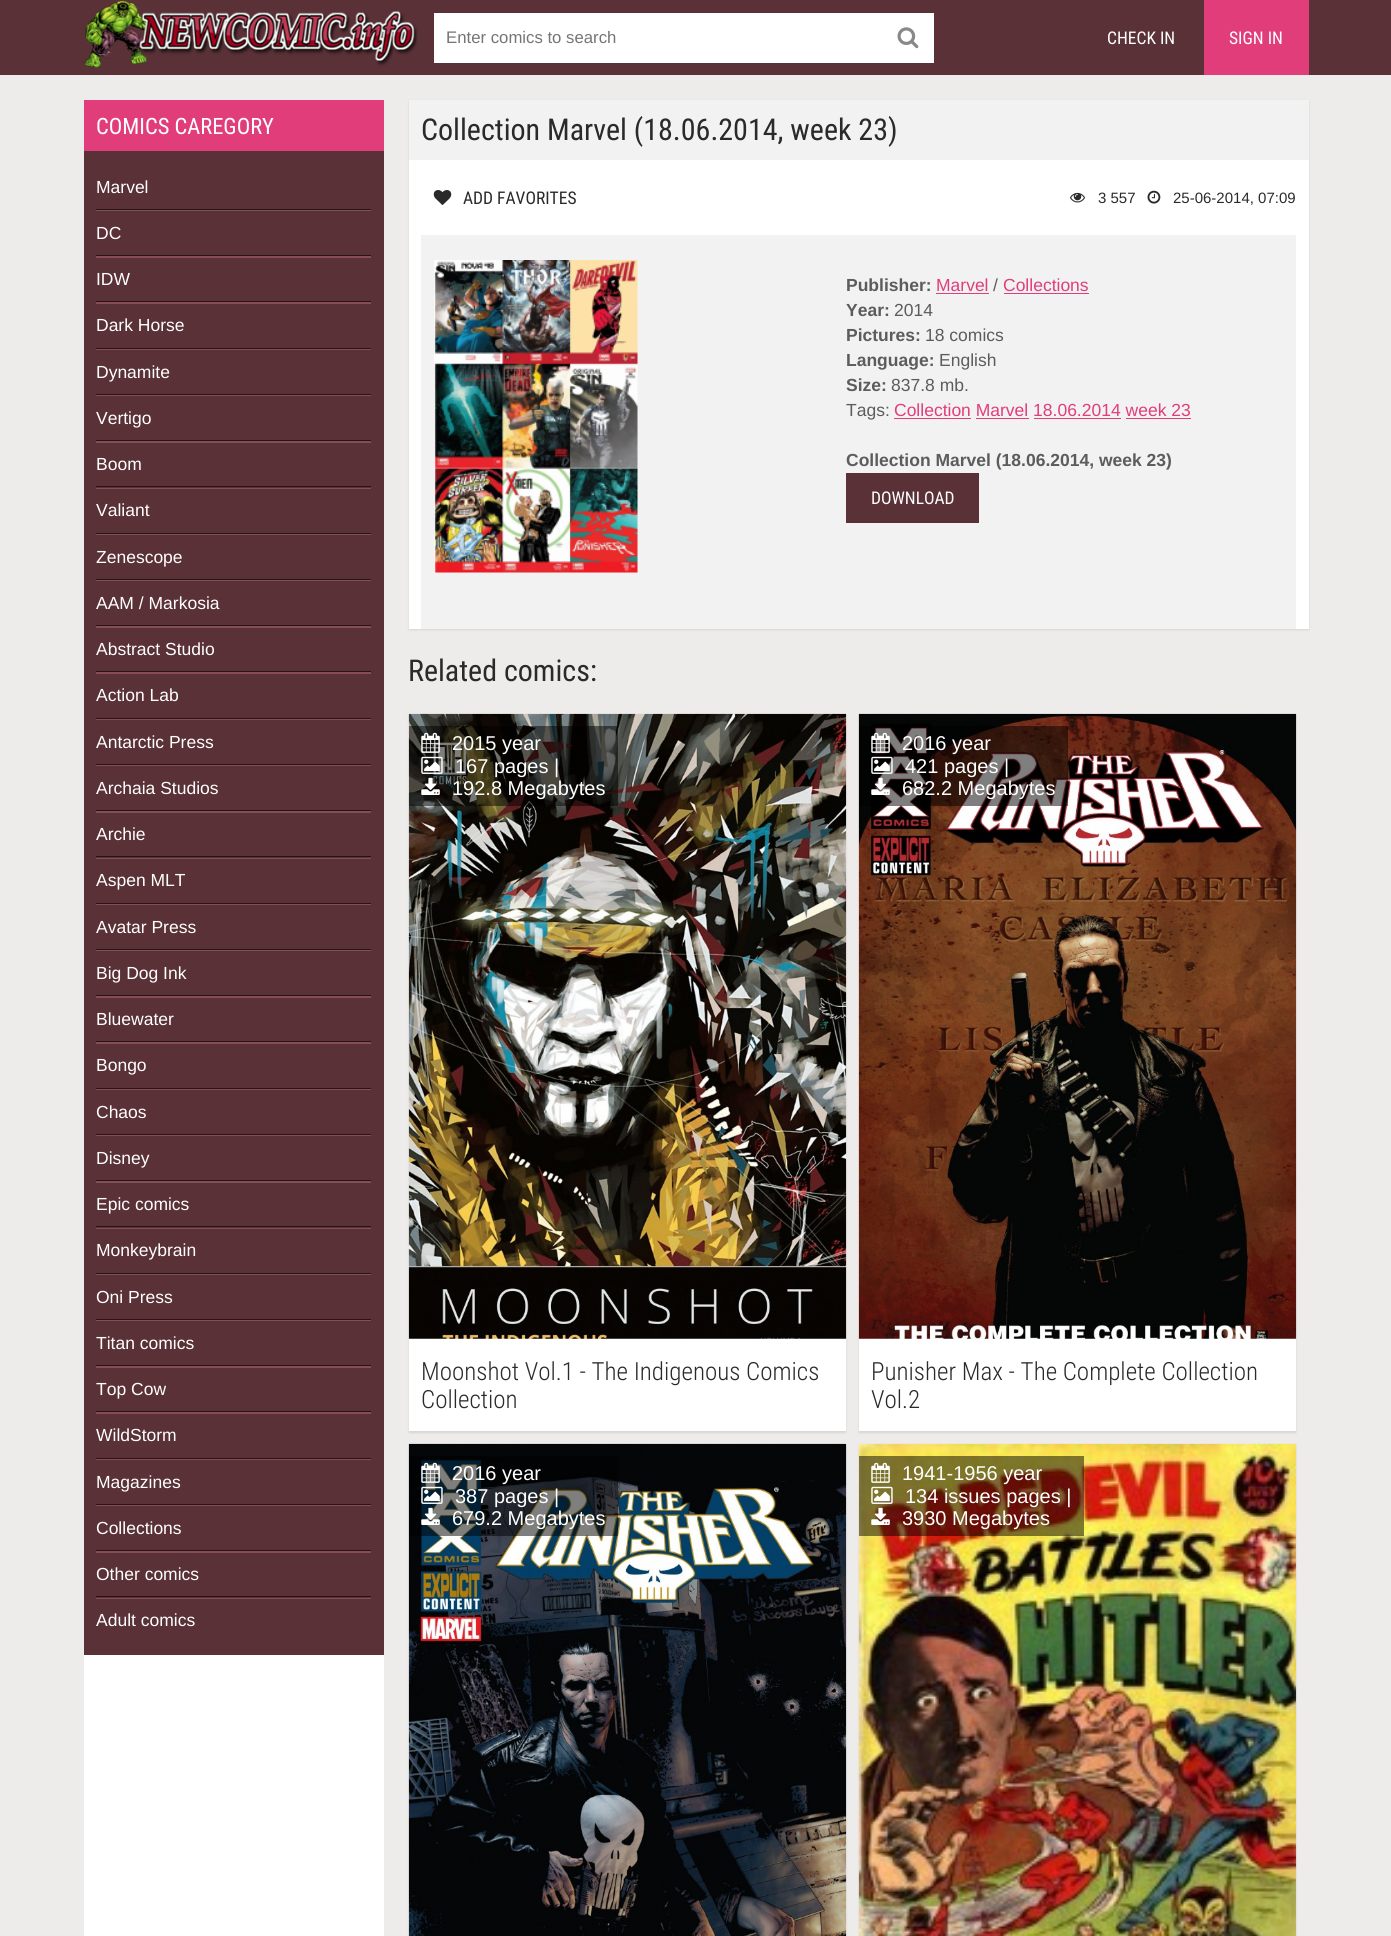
#include <cairo.h>
#include <math.h>
#include <stddef.h>

typedef struct { const char *family; double size; int italic, bold; unsigned color; } style_t;
static cairo_t *ctx;

static void ink(unsigned color) {
    cairo_set_source_rgb(ctx, (color >> 16) / 255.0, (color >> 8 & 255) / 255.0, (color & 255) / 255.0);
}

static void write(double x, double y, const char *s, const style_t *st) {
    cairo_select_font_face(ctx, st->family, st->italic ? CAIRO_FONT_SLANT_ITALIC : CAIRO_FONT_SLANT_NORMAL,
        st->bold ? CAIRO_FONT_WEIGHT_BOLD : CAIRO_FONT_WEIGHT_NORMAL);
    cairo_set_font_size(ctx, st->size);
    ink(st->color);
    cairo_move_to(ctx, x, y);
    cairo_show_text(ctx, s);
}

static void block(double x, double y, double w, double h, unsigned color) {
    ink(color);
    cairo_rectangle(ctx, x, y, w, h);
    cairo_fill(ctx);
}

static void round_path(double x, double y, double w, double h, double r) {
    cairo_new_sub_path(ctx);
    cairo_arc(ctx, x + w - r, y + h - r, r, 0, M_PI / 2);
    cairo_arc(ctx, x + r, y + h - r, r, M_PI / 2, M_PI);
    cairo_arc(ctx, x + r, y + r, r, M_PI, 1.5 * M_PI);
    cairo_arc(ctx, x + w - r, y + r, r, 1.5 * M_PI, 2 * M_PI);
    cairo_close_path(ctx);
}

static void blur_box(double x, double y, double w, double h, double r, double blur, double alpha) {
    cairo_push_group_with_content(ctx, CAIRO_CONTENT_ALPHA);
    cairo_set_operator(ctx, CAIRO_OPERATOR_SOURCE);
    for (int i = 15; i >= -15 && fmin(w, h) + blur * i / 3 > 0; i -= 2) {
        double e = blur * i / 6;
        cairo_set_source_rgba(ctx, 0, 0, 0, alpha * erfc((i - 1) / 8.5) / 2);
        round_path(x - e, y - e, w + 2 * e, h + 2 * e, fmax(0, fmin(r + e + blur * .6, fmin(w, h) / 2 + e)));
        cairo_fill(ctx);
    }
    cairo_pattern_t *soft = cairo_pop_group(ctx);
    cairo_mask(ctx, soft);
    cairo_pattern_destroy(soft);
}

static void paste(const char *path, double x, double y, double w, double h) {
    cairo_surface_t *image = cairo_image_surface_create_from_png(path);
    cairo_save(ctx);
    cairo_set_source_surface(ctx, image, x, y);
    cairo_rectangle(ctx, x, y, w, h);
    cairo_fill(ctx);
    cairo_restore(ctx);
    cairo_surface_destroy(image);
}

static const style_t s1 = {"Liberation Sans", 16.75, 0, 0, 0x757575};
static const style_t s2 = {"Roboto Condensed", 17.5, 0, 0, 0xffffff};
static const style_t s3 = {"Roboto Condensed", 22.5, 0, 0, 0xffffff};
static const style_t s4 = {"Liberation Sans", 17.5, 0, 0, 0xffffff};
static const style_t s5 = {"Roboto Condensed", 30, 0, 0, 0x2a2a2a};
static const style_t s6 = {"Roboto Condensed", 17.5, 0, 0, 0x2a2a2a};
static const style_t s7 = {"Liberation Sans", 15, 0, 0, 0x2a2a2a};
static const style_t s8 = {"Liberation Sans", 17.5, 0, 1, 0x5c5c5c};
static const style_t s9 = {"Liberation Sans", 17.5, 0, 0, 0xe13d7a};
static const style_t s10 = {"Liberation Sans", 17.5, 0, 0, 0x5c5c5c};
static const style_t s11 = {"Liberation Sans", 20, 0, 0, 0xffffff};
static const style_t s12 = {"Roboto Condensed Light", 25, 0, 0, 0x2a2a2a};

int main(void) {
    cairo_surface_t *surface = cairo_image_surface_create(CAIRO_FORMAT_RGB24, 1391, 1936);
    ctx = cairo_create(surface);
    cairo_font_options_t *options = cairo_font_options_create();
    cairo_font_options_set_hint_metrics(options, CAIRO_HINT_METRICS_OFF);
    cairo_font_options_set_hint_style(options, CAIRO_HINT_STYLE_NONE);
    cairo_set_font_options(ctx, options);
    cairo_set_miter_limit(ctx, 4);
    ink(0xeeebeb);
    cairo_paint(ctx);
    block(0, 0, 1391, 75, 0x593136);
    paste("pic1.png", 84, 0, 334, 68);
    block(434, 13, 500, 50, 0xffffff);
    write(446, 43, "Enter comics to search", &s1);
    paste("pic2.png", 897, 27, 22, 22);
    write(1107, 44, "CHECK IN", &s2);
    block(1204, 0, 105, 75, 0xe13d7a);
    write(1229, 44, "SIGN IN", &s2);
    block(84, 1655, 300, 281, 0xffffff);
    block(84, 151, 300, 1504, 0x593136);
    block(84, 100, 300, 51, 0xe13d7a);
    write(96, 134, "COMICS CAREGORY", &s3);
    ink(0x874d55);
    cairo_new_path(ctx);
    cairo_move_to(ctx, 96, 165);
    cairo_line_to(ctx, 96, 211);
    cairo_line_to(ctx, 371, 211);
    cairo_line_to(ctx, 371, 210);
    cairo_line_to(ctx, 96, 210);
    cairo_close_path(ctx);
    cairo_fill(ctx);
    block(96, 209, 275, 1, 0x251517);
    write(96, 193, "Marvel", &s4);
    ink(0x874d55);
    cairo_new_path(ctx);
    cairo_move_to(ctx, 96, 211);
    cairo_line_to(ctx, 96, 258);
    cairo_line_to(ctx, 371, 258);
    cairo_line_to(ctx, 371, 256);
    cairo_line_to(ctx, 96, 256);
    cairo_close_path(ctx);
    cairo_fill(ctx);
    block(96, 255, 275, 1, 0x251517);
    write(96, 239, "DC", &s4);
    ink(0x874d55);
    cairo_new_path(ctx);
    cairo_move_to(ctx, 96, 258);
    cairo_line_to(ctx, 96, 304);
    cairo_line_to(ctx, 371, 304);
    cairo_line_to(ctx, 371, 302);
    cairo_line_to(ctx, 96, 302);
    cairo_close_path(ctx);
    cairo_fill(ctx);
    block(96, 301, 275, 1, 0x251517);
    write(96, 285, "IDW", &s4);
    ink(0x874d55);
    cairo_new_path(ctx);
    cairo_move_to(ctx, 96, 304);
    cairo_line_to(ctx, 96, 350);
    cairo_line_to(ctx, 371, 350);
    cairo_line_to(ctx, 371, 349);
    cairo_line_to(ctx, 96, 349);
    cairo_close_path(ctx);
    cairo_fill(ctx);
    block(96, 348, 275, 1, 0x251517);
    write(96, 331, "Dark Horse", &s4);
    ink(0x874d55);
    cairo_new_path(ctx);
    cairo_move_to(ctx, 96, 350);
    cairo_line_to(ctx, 96, 396);
    cairo_line_to(ctx, 371, 396);
    cairo_line_to(ctx, 371, 395);
    cairo_line_to(ctx, 96, 395);
    cairo_close_path(ctx);
    cairo_fill(ctx);
    block(96, 394, 275, 1, 0x251517);
    write(96, 378, "Dynamite", &s4);
    ink(0x874d55);
    cairo_new_path(ctx);
    cairo_move_to(ctx, 96, 396);
    cairo_line_to(ctx, 96, 443);
    cairo_line_to(ctx, 371, 443);
    cairo_line_to(ctx, 371, 441);
    cairo_line_to(ctx, 96, 441);
    cairo_close_path(ctx);
    cairo_fill(ctx);
    block(96, 440, 275, 1, 0x251517);
    write(96, 424, "Vertigo", &s4);
    ink(0x874d55);
    cairo_new_path(ctx);
    cairo_move_to(ctx, 96, 443);
    cairo_line_to(ctx, 96, 489);
    cairo_line_to(ctx, 371, 489);
    cairo_line_to(ctx, 371, 488);
    cairo_line_to(ctx, 96, 488);
    cairo_close_path(ctx);
    cairo_fill(ctx);
    block(96, 486, 275, 1, 0x251517);
    write(96, 470, "Boom", &s4);
    ink(0x874d55);
    cairo_new_path(ctx);
    cairo_move_to(ctx, 96, 489);
    cairo_line_to(ctx, 96, 535);
    cairo_line_to(ctx, 371, 535);
    cairo_line_to(ctx, 371, 534);
    cairo_line_to(ctx, 96, 534);
    cairo_close_path(ctx);
    cairo_fill(ctx);
    block(96, 533, 275, 1, 0x251517);
    write(96, 516, "Valiant", &s4);
    ink(0x874d55);
    cairo_new_path(ctx);
    cairo_move_to(ctx, 96, 535);
    cairo_line_to(ctx, 96, 581);
    cairo_line_to(ctx, 371, 581);
    cairo_line_to(ctx, 371, 580);
    cairo_line_to(ctx, 96, 580);
    cairo_close_path(ctx);
    cairo_fill(ctx);
    block(96, 579, 275, 1, 0x251517);
    write(96, 563, "Zenescope", &s4);
    ink(0x874d55);
    cairo_new_path(ctx);
    cairo_move_to(ctx, 96, 581);
    cairo_line_to(ctx, 96, 628);
    cairo_line_to(ctx, 371, 628);
    cairo_line_to(ctx, 371, 626);
    cairo_line_to(ctx, 96, 626);
    cairo_close_path(ctx);
    cairo_fill(ctx);
    block(96, 625, 275, 1, 0x251517);
    write(96, 609, "AAM / Markosia", &s4);
    ink(0x874d55);
    cairo_new_path(ctx);
    cairo_move_to(ctx, 96, 628);
    cairo_line_to(ctx, 96, 674);
    cairo_line_to(ctx, 371, 674);
    cairo_line_to(ctx, 371, 672);
    cairo_line_to(ctx, 96, 672);
    cairo_close_path(ctx);
    cairo_fill(ctx);
    block(96, 671, 275, 1, 0x251517);
    write(96, 655, "Abstract Studio", &s4);
    ink(0x874d55);
    cairo_new_path(ctx);
    cairo_move_to(ctx, 96, 674);
    cairo_line_to(ctx, 96, 720);
    cairo_line_to(ctx, 371, 720);
    cairo_line_to(ctx, 371, 719);
    cairo_line_to(ctx, 96, 719);
    cairo_close_path(ctx);
    cairo_fill(ctx);
    block(96, 718, 275, 1, 0x251517);
    write(96, 701, "Action Lab", &s4);
    ink(0x874d55);
    cairo_new_path(ctx);
    cairo_move_to(ctx, 96, 720);
    cairo_line_to(ctx, 96, 766);
    cairo_line_to(ctx, 371, 766);
    cairo_line_to(ctx, 371, 765);
    cairo_line_to(ctx, 96, 765);
    cairo_close_path(ctx);
    cairo_fill(ctx);
    block(96, 764, 275, 1, 0x251517);
    write(96, 748, "Antarctic Press", &s4);
    ink(0x874d55);
    cairo_new_path(ctx);
    cairo_move_to(ctx, 96, 766);
    cairo_line_to(ctx, 96, 813);
    cairo_line_to(ctx, 371, 813);
    cairo_line_to(ctx, 371, 811);
    cairo_line_to(ctx, 96, 811);
    cairo_close_path(ctx);
    cairo_fill(ctx);
    block(96, 810, 275, 1, 0x251517);
    write(96, 794, "Archaia Studios", &s4);
    ink(0x874d55);
    cairo_new_path(ctx);
    cairo_move_to(ctx, 96, 813);
    cairo_line_to(ctx, 96, 859);
    cairo_line_to(ctx, 371, 859);
    cairo_line_to(ctx, 371, 858);
    cairo_line_to(ctx, 96, 858);
    cairo_close_path(ctx);
    cairo_fill(ctx);
    block(96, 856, 275, 1, 0x251517);
    write(96, 840, "Archie", &s4);
    ink(0x874d55);
    cairo_new_path(ctx);
    cairo_move_to(ctx, 96, 859);
    cairo_line_to(ctx, 96, 905);
    cairo_line_to(ctx, 371, 905);
    cairo_line_to(ctx, 371, 904);
    cairo_line_to(ctx, 96, 904);
    cairo_close_path(ctx);
    cairo_fill(ctx);
    block(96, 903, 275, 1, 0x251517);
    write(96, 886, "Aspen MLT", &s4);
    ink(0x874d55);
    cairo_new_path(ctx);
    cairo_move_to(ctx, 96, 905);
    cairo_line_to(ctx, 96, 951);
    cairo_line_to(ctx, 371, 951);
    cairo_line_to(ctx, 371, 950);
    cairo_line_to(ctx, 96, 950);
    cairo_close_path(ctx);
    cairo_fill(ctx);
    block(96, 949, 275, 1, 0x251517);
    write(96, 933, "Avatar Press", &s4);
    ink(0x874d55);
    cairo_new_path(ctx);
    cairo_move_to(ctx, 96, 951);
    cairo_line_to(ctx, 96, 998);
    cairo_line_to(ctx, 371, 998);
    cairo_line_to(ctx, 371, 996);
    cairo_line_to(ctx, 96, 996);
    cairo_close_path(ctx);
    cairo_fill(ctx);
    block(96, 995, 275, 1, 0x251517);
    write(96, 979, "Big Dog Ink", &s4);
    ink(0x874d55);
    cairo_new_path(ctx);
    cairo_move_to(ctx, 96, 998);
    cairo_line_to(ctx, 96, 1044);
    cairo_line_to(ctx, 371, 1044);
    cairo_line_to(ctx, 371, 1042);
    cairo_line_to(ctx, 96, 1042);
    cairo_close_path(ctx);
    cairo_fill(ctx);
    block(96, 1041, 275, 1, 0x251517);
    write(96, 1025, "Bluewater", &s4);
    ink(0x874d55);
    cairo_new_path(ctx);
    cairo_move_to(ctx, 96, 1044);
    cairo_line_to(ctx, 96, 1090);
    cairo_line_to(ctx, 371, 1090);
    cairo_line_to(ctx, 371, 1089);
    cairo_line_to(ctx, 96, 1089);
    cairo_close_path(ctx);
    cairo_fill(ctx);
    block(96, 1088, 275, 1, 0x251517);
    write(96, 1071, "Bongo", &s4);
    ink(0x874d55);
    cairo_new_path(ctx);
    cairo_move_to(ctx, 96, 1090);
    cairo_line_to(ctx, 96, 1136);
    cairo_line_to(ctx, 371, 1136);
    cairo_line_to(ctx, 371, 1135);
    cairo_line_to(ctx, 96, 1135);
    cairo_close_path(ctx);
    cairo_fill(ctx);
    block(96, 1134, 275, 1, 0x251517);
    write(96, 1118, "Chaos", &s4);
    ink(0x874d55);
    cairo_new_path(ctx);
    cairo_move_to(ctx, 96, 1136);
    cairo_line_to(ctx, 96, 1183);
    cairo_line_to(ctx, 371, 1183);
    cairo_line_to(ctx, 371, 1181);
    cairo_line_to(ctx, 96, 1181);
    cairo_close_path(ctx);
    cairo_fill(ctx);
    block(96, 1180, 275, 1, 0x251517);
    write(96, 1164, "Disney", &s4);
    ink(0x874d55);
    cairo_new_path(ctx);
    cairo_move_to(ctx, 96, 1183);
    cairo_line_to(ctx, 96, 1229);
    cairo_line_to(ctx, 371, 1229);
    cairo_line_to(ctx, 371, 1228);
    cairo_line_to(ctx, 96, 1228);
    cairo_close_path(ctx);
    cairo_fill(ctx);
    block(96, 1226, 275, 1, 0x251517);
    write(96, 1210, "Epic comics", &s4);
    ink(0x874d55);
    cairo_new_path(ctx);
    cairo_move_to(ctx, 96, 1229);
    cairo_line_to(ctx, 96, 1275);
    cairo_line_to(ctx, 371, 1275);
    cairo_line_to(ctx, 371, 1274);
    cairo_line_to(ctx, 96, 1274);
    cairo_close_path(ctx);
    cairo_fill(ctx);
    block(96, 1273, 275, 1, 0x251517);
    write(96, 1256, "Monkeybrain", &s4);
    ink(0x874d55);
    cairo_new_path(ctx);
    cairo_move_to(ctx, 96, 1275);
    cairo_line_to(ctx, 96, 1321);
    cairo_line_to(ctx, 371, 1321);
    cairo_line_to(ctx, 371, 1320);
    cairo_line_to(ctx, 96, 1320);
    cairo_close_path(ctx);
    cairo_fill(ctx);
    block(96, 1319, 275, 1, 0x251517);
    write(96, 1303, "Oni Press", &s4);
    ink(0x874d55);
    cairo_new_path(ctx);
    cairo_move_to(ctx, 96, 1321);
    cairo_line_to(ctx, 96, 1368);
    cairo_line_to(ctx, 371, 1368);
    cairo_line_to(ctx, 371, 1366);
    cairo_line_to(ctx, 96, 1366);
    cairo_close_path(ctx);
    cairo_fill(ctx);
    block(96, 1365, 275, 1, 0x251517);
    write(96, 1349, "Titan comics", &s4);
    ink(0x874d55);
    cairo_new_path(ctx);
    cairo_move_to(ctx, 96, 1368);
    cairo_line_to(ctx, 96, 1414);
    cairo_line_to(ctx, 371, 1414);
    cairo_line_to(ctx, 371, 1412);
    cairo_line_to(ctx, 96, 1412);
    cairo_close_path(ctx);
    cairo_fill(ctx);
    block(96, 1411, 275, 1, 0x251517);
    write(96, 1395, "Top Cow", &s4);
    ink(0x874d55);
    cairo_new_path(ctx);
    cairo_move_to(ctx, 96, 1414);
    cairo_line_to(ctx, 96, 1460);
    cairo_line_to(ctx, 371, 1460);
    cairo_line_to(ctx, 371, 1459);
    cairo_line_to(ctx, 96, 1459);
    cairo_close_path(ctx);
    cairo_fill(ctx);
    block(96, 1458, 275, 1, 0x251517);
    write(96, 1441, "WildStorm", &s4);
    ink(0x874d55);
    cairo_new_path(ctx);
    cairo_move_to(ctx, 96, 1460);
    cairo_line_to(ctx, 96, 1506);
    cairo_line_to(ctx, 371, 1506);
    cairo_line_to(ctx, 371, 1505);
    cairo_line_to(ctx, 96, 1505);
    cairo_close_path(ctx);
    cairo_fill(ctx);
    block(96, 1504, 275, 1, 0x251517);
    write(96, 1488, "Magazines", &s4);
    ink(0x874d55);
    cairo_new_path(ctx);
    cairo_move_to(ctx, 96, 1506);
    cairo_line_to(ctx, 96, 1553);
    cairo_line_to(ctx, 371, 1553);
    cairo_line_to(ctx, 371, 1551);
    cairo_line_to(ctx, 96, 1551);
    cairo_close_path(ctx);
    cairo_fill(ctx);
    block(96, 1550, 275, 1, 0x251517);
    write(96, 1534, "Collections", &s4);
    ink(0x874d55);
    cairo_new_path(ctx);
    cairo_move_to(ctx, 96, 1553);
    cairo_line_to(ctx, 96, 1599);
    cairo_line_to(ctx, 371, 1599);
    cairo_line_to(ctx, 371, 1598);
    cairo_line_to(ctx, 96, 1598);
    cairo_close_path(ctx);
    cairo_fill(ctx);
    block(96, 1596, 275, 1, 0x251517);
    write(96, 1580, "Other comics", &s4);
    write(96, 1626, "Adult comics", &s4);
    ink(0x000000);
    blur_box(409, 101, 900, 529, 0, 1, 0.1);
    block(409, 160, 900, 469, 0xffffff);
    block(409, 100, 900, 60, 0xf2f2f2);
    write(421, 140, "Collection Marvel (18.06.2014, week 23)", &s5);
    paste("pic3.png", 433, 190, 19, 15);
    write(463, 204, "ADD FAVORITES", &s6);
    paste("pic4.png", 1070, 192, 15, 11);
    write(1098, 203, "3 557", &s7);
    paste("pic5.png", 1147, 190, 14, 14);
    write(1173, 203, "25-06-2014, 07:09", &s7);
    block(421, 235, 875, 394, 0xf2f2f2);
    paste("pic6.png", 434, 260, 204, 313);
    write(846, 291, "Publisher:", &s8);
    write(936, 291, "Marvel", &s9);
    block(936, 293, 53, 1, 0xe13d7a);
    write(993, 291, "/", &s10);
    write(1003, 291, "Collections", &s9);
    block(1004, 293, 85, 1, 0xe13d7a);
    write(846, 316, "Year:", &s8);
    write(894, 316, "2014", &s10);
    write(846, 341, "Pictures:", &s8);
    write(925, 341, "18 comics", &s10);
    write(846, 366, "Language:", &s8);
    write(939, 366, "English", &s10);
    write(846, 391, "Size:", &s8);
    write(891, 391, "837.8 mb.", &s10);
    write(846, 416, "Tags:", &s10);
    write(894, 416, "Collection Marvel 18.06.2014 week 23", &s9);
    block(894, 418, 77, 1, 0xe13d7a);
    block(976, 418, 53, 1, 0xe13d7a);
    block(1034, 418, 87, 1, 0xe13d7a);
    block(1126, 418, 65, 1, 0xe13d7a);
    write(846, 466, "Collection Marvel (18.06.2014, week 23)", &s8);
    block(846, 473, 133, 50, 0x593136);
    write(871, 504, "DOWNLOAD", &s2);
    write(408, 681, "Related comics:", &s5);
    ink(0x000000);
    blur_box(409, 715, 437, 718, 0, 1, 0.1);
    block(409, 1338, 437, 93, 0xffffff);
    paste("pic7.png", 408, 713, 439, 626);
    cairo_set_source_rgba(ctx, 0, 0, 0, 0.5);
    cairo_rectangle(ctx, 409, 726, 209, 80);
    cairo_fill(ctx);
    paste("pic8.png", 421, 732, 19, 21);
    write(452, 750, "2015 year", &s11);
    paste("pic9.png", 421, 756, 22, 18);
    write(455, 773, "167 pages |", &s11);
    paste("pic10.png", 421, 777, 19, 18);
    write(452, 795, "192.8 Megabytes", &s11);
    write(421, 1380, "Moonshot Vol.1 - The Indigenous Comics", &s12);
    write(421, 1408, "Collection", &s12);
    ink(0x000000);
    blur_box(859, 715, 437, 718, 0, 1, 0.1);
    block(859, 1338, 437, 93, 0xffffff);
    paste("pic11.png", 858, 713, 439, 626);
    cairo_set_source_rgba(ctx, 0, 0, 0, 0.5);
    cairo_rectangle(ctx, 859, 726, 209, 80);
    cairo_fill(ctx);
    paste("pic12.png", 871, 732, 19, 21);
    write(902, 750, "2016 year", &s11);
    paste("pic13.png", 871, 756, 22, 18);
    write(905, 773, "421 pages |", &s11);
    paste("pic14.png", 871, 777, 19, 18);
    write(902, 795, "682.2 Megabytes", &s11);
    write(871, 1380, "Punisher Max - The Complete Collection", &s12);
    write(871, 1408, "Vol.2", &s12);
    ink(0x000000);
    blur_box(409, 1445, 437, 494, 0, 1, 0.1);
    paste("pic15.png", 408, 1443, 439, 493);
    cairo_set_source_rgba(ctx, 0, 0, 0, 0.5);
    cairo_rectangle(ctx, 409, 1456, 209, 80);
    cairo_fill(ctx);
    paste("pic16.png", 421, 1462, 19, 21);
    write(452, 1480, "2016 year", &s11);
    paste("pic17.png", 421, 1486, 22, 18);
    write(455, 1503, "387 pages |", &s11);
    paste("pic18.png", 421, 1507, 19, 18);
    write(452, 1525, "679.2 Megabytes", &s11);
    ink(0x000000);
    blur_box(859, 1445, 437, 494, 0, 1, 0.1);
    paste("pic19.png", 858, 1443, 439, 493);
    cairo_set_source_rgba(ctx, 0, 0, 0, 0.5);
    cairo_rectangle(ctx, 859, 1456, 225, 80);
    cairo_fill(ctx);
    paste("pic20.png", 871, 1462, 19, 21);
    write(902, 1480, "1941-1956 year", &s11);
    paste("pic21.png", 871, 1486, 22, 18);
    write(905, 1503, "134 issues pages |", &s11);
    paste("pic22.png", 871, 1507, 19, 18);
    write(902, 1525, "3930 Megabytes", &s11);
    cairo_surface_write_to_png(surface, "screenshot.png");
    cairo_font_options_destroy(options);
    cairo_destroy(ctx);
    cairo_surface_destroy(surface);
    return 0;
}
